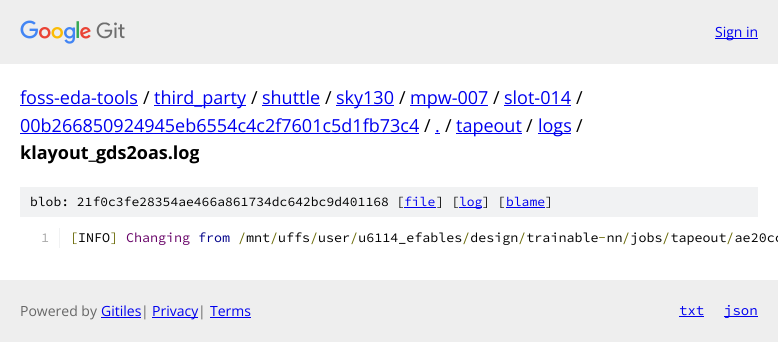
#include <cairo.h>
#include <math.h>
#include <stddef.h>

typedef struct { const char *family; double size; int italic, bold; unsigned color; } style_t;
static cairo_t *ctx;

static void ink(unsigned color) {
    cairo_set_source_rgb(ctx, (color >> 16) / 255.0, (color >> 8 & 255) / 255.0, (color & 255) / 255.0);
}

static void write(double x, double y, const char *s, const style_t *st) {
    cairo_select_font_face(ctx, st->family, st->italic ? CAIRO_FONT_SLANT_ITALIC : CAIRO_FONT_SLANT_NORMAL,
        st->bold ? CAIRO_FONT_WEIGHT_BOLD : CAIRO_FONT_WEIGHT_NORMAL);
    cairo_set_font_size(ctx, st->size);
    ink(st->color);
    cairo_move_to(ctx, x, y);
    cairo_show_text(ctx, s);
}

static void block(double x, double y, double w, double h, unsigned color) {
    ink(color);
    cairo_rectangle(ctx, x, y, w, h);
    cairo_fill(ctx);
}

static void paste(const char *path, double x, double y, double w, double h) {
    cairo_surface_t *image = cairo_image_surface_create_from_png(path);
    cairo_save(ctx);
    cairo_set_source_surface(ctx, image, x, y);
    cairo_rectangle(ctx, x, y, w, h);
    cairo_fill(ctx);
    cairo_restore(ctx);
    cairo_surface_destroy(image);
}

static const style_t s1 = {"Open Sans", 14, 0, 0, 0x0000ee};
static const style_t s2 = {"Open Sans", 18, 0, 0, 0x0000ee};
static const style_t s3 = {"Open Sans", 18, 0, 0, 0x000000};
static const style_t s4 = {"Open Sans", 18, 0, 1, 0x000000};
static const style_t s5 = {"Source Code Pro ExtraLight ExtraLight", 13, 0, 0, 0x000000};
static const style_t s6 = {"Source Code Pro ExtraLight ExtraLight", 13, 0, 0, 0x0000ee};
static const style_t s7 = {"Source Code Pro ExtraLight ExtraLight", 13.35, 0, 0, 0xaaaaaa};
static const style_t s8 = {"Source Code Pro ExtraLight ExtraLight", 13.35, 0, 0, 0x666600};
static const style_t s9 = {"Source Code Pro ExtraLight ExtraLight", 13.35, 0, 0, 0x660066};
static const style_t s10 = {"Source Code Pro ExtraLight ExtraLight", 13.35, 0, 0, 0x000088};
static const style_t s11 = {"Source Code Pro ExtraLight ExtraLight", 13.35, 0, 0, 0x000000};
static const style_t s12 = {"Open Sans", 14, 0, 0, 0x666666};
static const style_t s13 = {"Source Code Pro ExtraLight ExtraLight", 14, 0, 0, 0x0000ee};

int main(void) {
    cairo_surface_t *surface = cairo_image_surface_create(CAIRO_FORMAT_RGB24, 778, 342);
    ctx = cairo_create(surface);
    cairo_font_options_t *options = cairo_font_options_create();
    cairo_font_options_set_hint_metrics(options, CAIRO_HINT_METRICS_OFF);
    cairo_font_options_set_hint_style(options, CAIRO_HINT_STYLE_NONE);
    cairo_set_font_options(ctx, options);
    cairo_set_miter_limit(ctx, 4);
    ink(0xffffff);
    cairo_paint(ctx);
    block(0, 0, 778, 64, 0xeeeeee);
    paste("pic1.png", 20, 20, 105, 24);
    block(715, 38, 43, 1, 0x0000ee);
    write(715, 37, "Sign in", &s1);
    write(20, 104, "foss-eda-tools", &s2);
    block(20, 105, 118, 1, 0x0000ee);
    write(143, 104, "/", &s3);
    block(154, 105, 92, 1, 0x0000ee);
    write(154, 104, "third_party", &s2);
    write(251, 104, "/", &s3);
    write(262, 104, "shuttle", &s2);
    block(262, 105, 58, 1, 0x0000ee);
    write(325, 104, "/", &s3);
    block(336, 105, 58, 1, 0x0000ee);
    write(336, 104, "sky130", &s2);
    write(399, 104, "/", &s3);
    block(410, 105, 78, 1, 0x0000ee);
    write(410, 104, "mpw-007", &s2);
    write(493, 104, "/", &s3);
    write(504, 104, "slot-014", &s2);
    block(504, 105, 67, 1, 0x0000ee);
    write(576, 104, "/", &s3);
    write(20, 132, "00b266850924945eb6554c4c2f7601c5d1fb73c4", &s2);
    block(20, 133, 399, 1, 0x0000ee);
    write(424, 132, "/", &s3);
    write(435, 132, ".", &s2);
    block(435, 133, 5, 1, 0x0000ee);
    write(445, 132, "/", &s3);
    block(456, 133, 66, 1, 0x0000ee);
    write(456, 132, "tapeout", &s2);
    write(526, 132, "/", &s3);
    block(538, 133, 33, 1, 0x0000ee);
    write(538, 132, "logs", &s2);
    write(576, 132, "/", &s3);
    write(20, 159, "klayout_gds2oas.log", &s4);
    block(20, 187, 738, 30, 0xf1f2f3);
    write(30, 206, "blob: 21f0c3fe28354ae466a861734dc642bc9d401168 [", &s5);
    write(404, 206, "file", &s6);
    block(404, 207, 32, 1, 0x0000ee);
    write(436, 206, "] [", &s5);
    block(459, 207, 23, 1, 0x0000ee);
    write(459, 206, "log", &s6);
    write(482, 206, "] [", &s5);
    write(506, 206, "blame", &s6);
    block(506, 207, 39, 1, 0x0000ee);
    write(545, 206, "]", &s5);
    block(59, 228, 1, 20, 0xf1f2f3);
    write(41, 242, "1", &s7);
    write(70, 242, "[", &s8);
    write(110, 242, "]", &s8);
    write(126, 242, "Changing", &s9);
    write(198, 242, "from", &s10);
    write(238, 242, "/", &s8);
    write(246, 242, "mnt uffs user u6114_efables design trainable nn jobs tapeout ae20cc", &s11);
    write(78, 242, "INFO", &s11);
    write(270, 242, "/", &s8);
    write(310, 242, "/", &s8);
    write(350, 242, "/", &s8);
    write(462, 242, "/", &s8);
    write(518, 242, "/", &s8);
    write(598, 242, "-", &s8);
    write(622, 242, "/", &s8);
    write(662, 242, "/", &s8);
    write(726, 242, "/", &s8);
    block(0, 280, 778, 62, 0xeeeeee);
    write(20, 316, "Powered by", &s12);
    write(101, 316, "Gitiles", &s1);
    block(101, 317, 40, 1, 0x0000ee);
    write(141, 316, "|", &s12);
    block(152, 317, 46, 1, 0x0000ee);
    write(152, 316, "Privacy", &s1);
    write(198, 316, "|", &s12);
    write(210, 316, "Terms", &s1);
    block(210, 317, 41, 1, 0x0000ee);
    write(679, 315, "txt", &s13);
    block(679, 316, 25, 1, 0x0000ee);
    block(724, 316, 34, 1, 0x0000ee);
    write(724, 315, "json", &s13);
    cairo_surface_write_to_png(surface, "screenshot.png");
    cairo_font_options_destroy(options);
    cairo_destroy(ctx);
    cairo_surface_destroy(surface);
    return 0;
}
